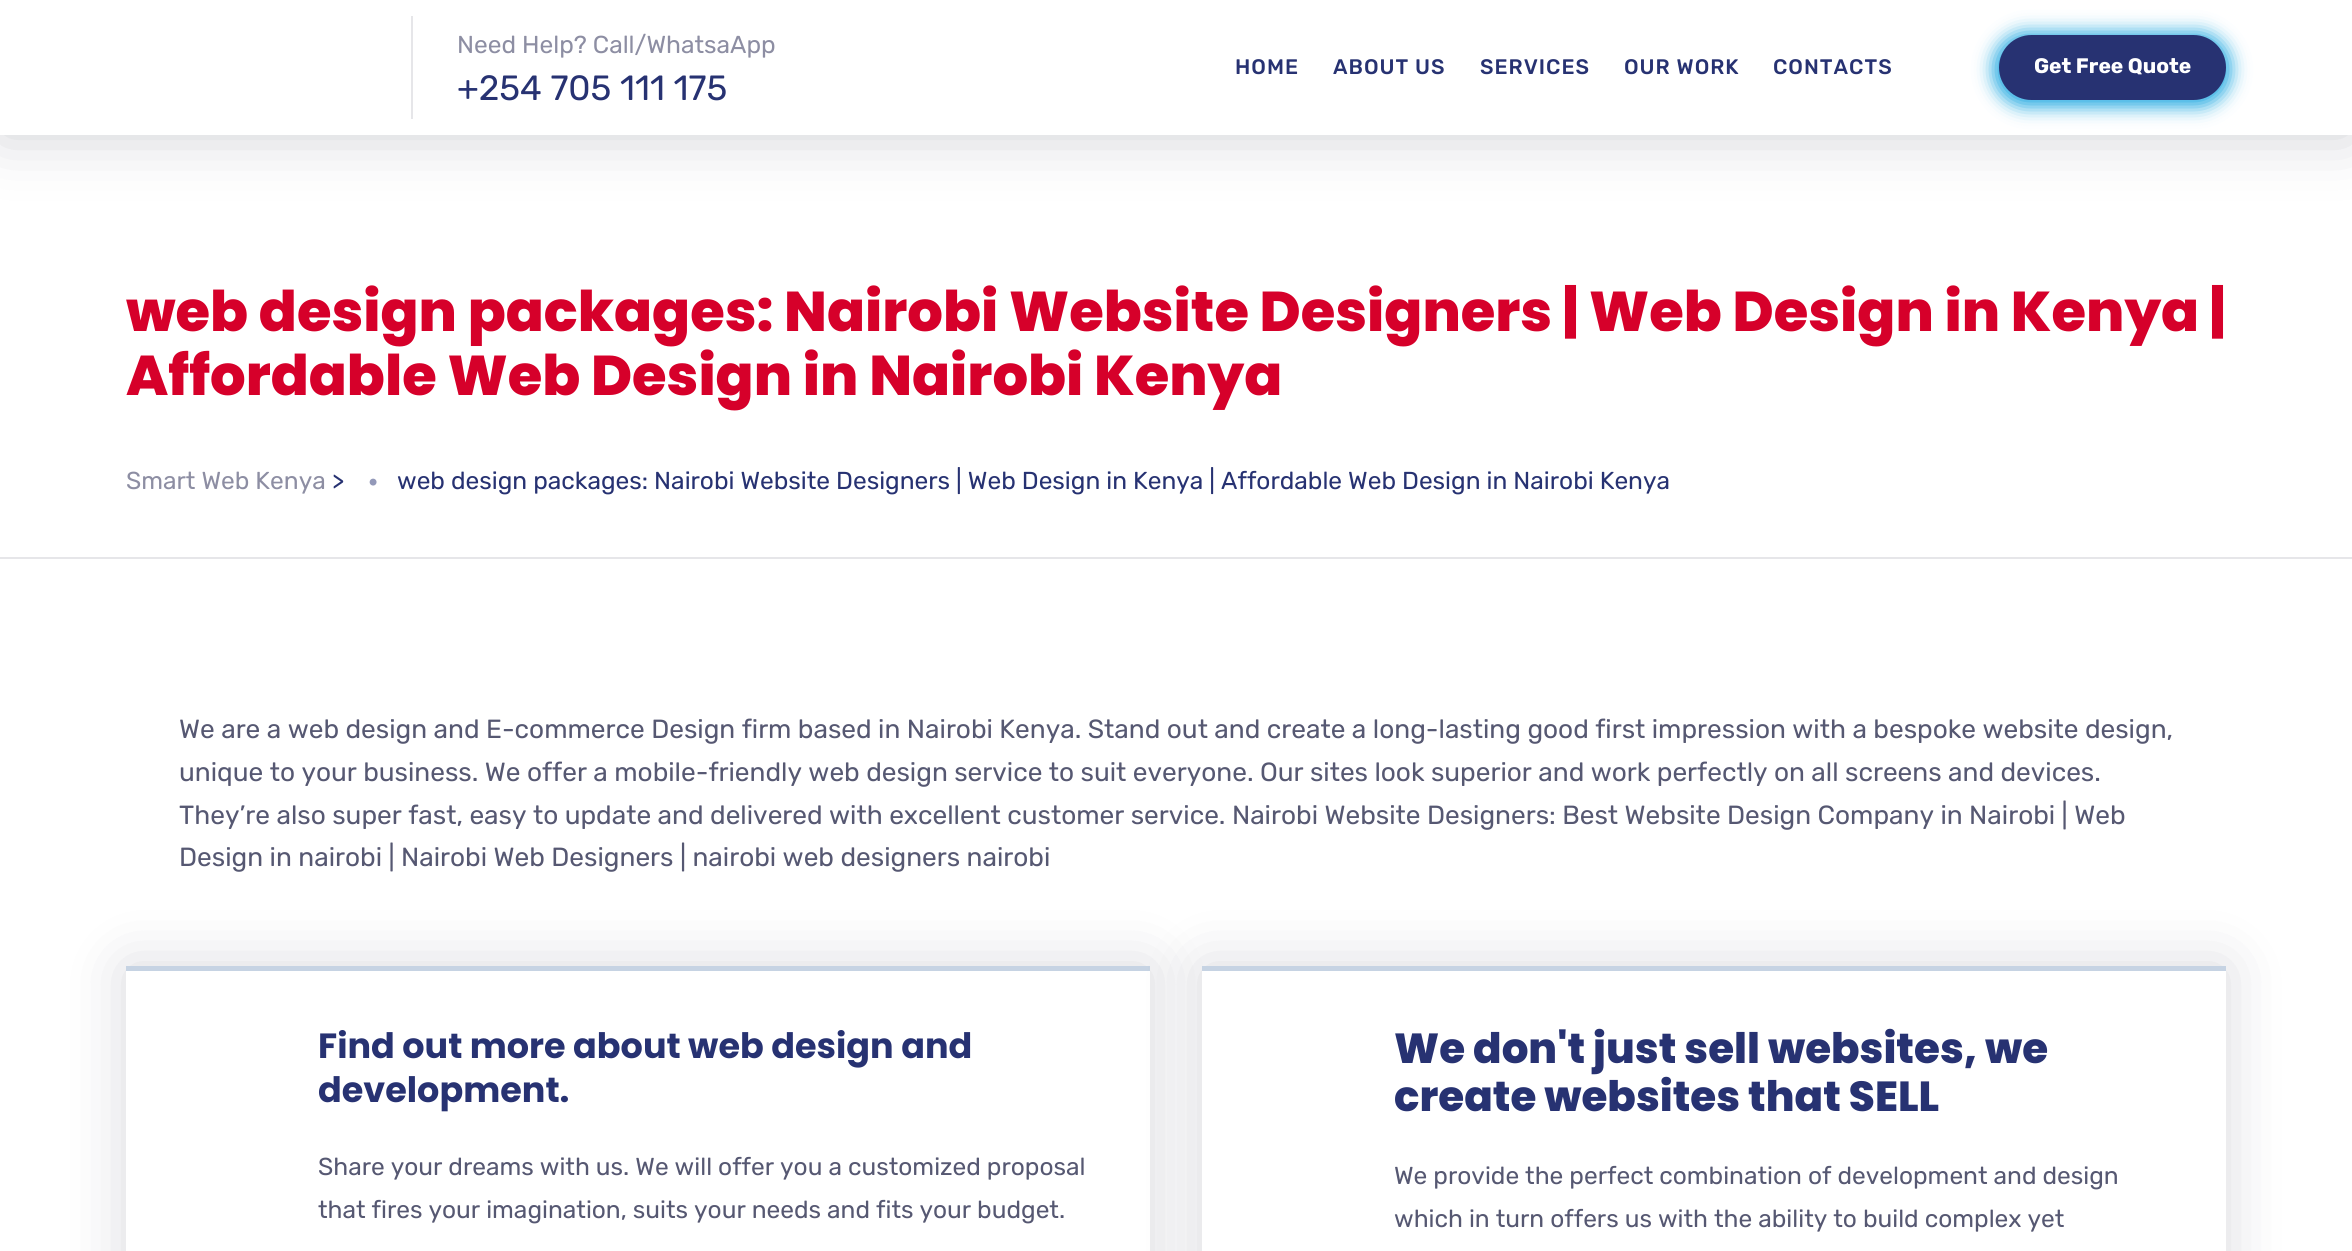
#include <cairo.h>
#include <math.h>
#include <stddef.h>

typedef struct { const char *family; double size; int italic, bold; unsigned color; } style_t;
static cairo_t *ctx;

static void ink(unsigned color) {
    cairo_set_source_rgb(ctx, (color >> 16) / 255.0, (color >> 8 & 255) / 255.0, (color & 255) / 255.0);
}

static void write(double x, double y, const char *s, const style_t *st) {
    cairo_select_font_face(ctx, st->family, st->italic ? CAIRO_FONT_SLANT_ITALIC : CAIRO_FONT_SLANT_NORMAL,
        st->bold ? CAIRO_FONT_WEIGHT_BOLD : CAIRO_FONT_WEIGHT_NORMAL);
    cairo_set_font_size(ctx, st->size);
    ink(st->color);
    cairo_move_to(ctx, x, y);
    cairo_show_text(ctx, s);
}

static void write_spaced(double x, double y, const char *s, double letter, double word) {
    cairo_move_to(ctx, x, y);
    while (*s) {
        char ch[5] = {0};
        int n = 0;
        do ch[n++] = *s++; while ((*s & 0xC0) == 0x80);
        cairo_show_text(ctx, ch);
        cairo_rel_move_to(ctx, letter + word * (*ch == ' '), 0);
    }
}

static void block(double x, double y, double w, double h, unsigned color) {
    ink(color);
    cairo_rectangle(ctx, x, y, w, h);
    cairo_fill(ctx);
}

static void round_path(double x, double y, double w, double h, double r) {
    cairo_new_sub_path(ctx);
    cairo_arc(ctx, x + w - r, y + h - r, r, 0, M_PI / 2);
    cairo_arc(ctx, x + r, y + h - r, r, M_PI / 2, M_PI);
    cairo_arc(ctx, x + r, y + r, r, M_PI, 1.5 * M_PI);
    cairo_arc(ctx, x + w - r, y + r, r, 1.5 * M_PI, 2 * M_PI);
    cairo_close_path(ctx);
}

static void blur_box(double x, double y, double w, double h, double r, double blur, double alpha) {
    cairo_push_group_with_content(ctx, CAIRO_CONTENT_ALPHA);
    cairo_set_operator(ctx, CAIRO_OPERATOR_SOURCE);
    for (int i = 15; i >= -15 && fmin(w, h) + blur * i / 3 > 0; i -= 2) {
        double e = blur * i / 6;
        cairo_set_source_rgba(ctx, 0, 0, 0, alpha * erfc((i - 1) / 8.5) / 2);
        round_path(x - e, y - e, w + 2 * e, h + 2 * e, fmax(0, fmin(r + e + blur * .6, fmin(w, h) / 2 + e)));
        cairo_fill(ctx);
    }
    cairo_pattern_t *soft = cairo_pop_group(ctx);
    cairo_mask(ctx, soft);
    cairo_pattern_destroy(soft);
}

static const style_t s1 = {"Rubik", 24.5, 0, 0, 0x8d8ea3};
static const style_t s2 = {"Rubik", 35, 0, 0, 0x273272};
static const style_t s3 = {"Rubik", 21, 0, 1, 0xffffff};
static const style_t s4 = {"Poppins ExtraBold", 56, 0, 0, 0xd6002a};
static const style_t s5 = {"Rubik", 24.5, 0, 0, 0x273272};
static const style_t s6 = {"Rubik", 32, 0, 0, 0x9399b9};
static const style_t s7 = {"Rubik", 26.25, 0, 0, 0x565872};
static const style_t s8 = {"Poppins", 35, 0, 1, 0x273272};
static const style_t s9 = {"Rubik", 24.5, 0, 0, 0x565872};
static const style_t s10 = {"Poppins ExtraBold", 42, 0, 0, 0x273272};

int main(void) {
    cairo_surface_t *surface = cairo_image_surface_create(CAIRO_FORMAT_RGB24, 2352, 1251);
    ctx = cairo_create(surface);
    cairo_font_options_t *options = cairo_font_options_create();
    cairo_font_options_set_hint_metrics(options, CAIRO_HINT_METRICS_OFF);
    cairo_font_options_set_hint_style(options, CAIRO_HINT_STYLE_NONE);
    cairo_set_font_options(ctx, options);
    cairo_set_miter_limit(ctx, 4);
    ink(0xffffff);
    cairo_paint(ctx);
    cairo_save(ctx);
    cairo_set_fill_rule(ctx, CAIRO_FILL_RULE_EVEN_ODD);
    cairo_new_path(ctx);
    cairo_move_to(ctx, 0, 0);
    cairo_line_to(ctx, 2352, 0);
    cairo_line_to(ctx, 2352, 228);
    cairo_line_to(ctx, 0, 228);
    cairo_close_path(ctx);
    cairo_move_to(ctx, 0, 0);
    cairo_line_to(ctx, 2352, 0);
    cairo_line_to(ctx, 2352, 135);
    cairo_line_to(ctx, 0, 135);
    cairo_close_path(ctx);
    cairo_clip(ctx);
    ink(0x020620);
    blur_box(0, 0, 2352, 135, 0, 30.5, 0.2);
    cairo_restore(ctx);
    cairo_set_source_rgba(ctx, 1, 1, 1, 0.95);
    cairo_rectangle(ctx, 0, 134, 2352, 1);
    cairo_fill(ctx);
    block(411, 16, 2, 103, 0xe6e6e9);
    write(457, 53, "Need Help? Call/WhatsaApp", &s1);
    write(457, 100, "+254 705 111 175", &s2);
    cairo_select_font_face(ctx, "Rubik Medium", CAIRO_FONT_SLANT_NORMAL, CAIRO_FONT_WEIGHT_NORMAL);
    cairo_set_font_size(ctx, 21);
    write_spaced(1235, 74, "HOME", 1, 0);
    write_spaced(1333, 74, "ABOUT US", 1, 0);
    write_spaced(1480, 74, "SERVICES", 1, 0);
    write_spaced(1624, 74, "OUR WORK", 1, 0);
    write_spaced(1773, 74, "CONTACTS", 1, 0);
    ink(0x25aae1);
    blur_box(1993, 32, 238, 75, 37.5, 9, 1);
    ink(0x273272);
    round_path(1999, 35, 227, 65, 32.5);
    cairo_fill(ctx);
    write(2034, 73, "Get Free Quote", &s3);
    block(0, 557, 2352, 2, 0xe6e6e9);
    write(126, 331, "web design packages: Nairobi Website Designers | Web Design in Kenya |", &s4);
    write(126, 395, "Affordable Web Design in Nairobi Kenya", &s4);
    write(126, 489, "Smart Web Kenya", &s1);
    write(332, 489, ">", &s5);
    write(367, 492, "•", &s6);
    write(397, 489, "web design packages: Nairobi Website Designers | Web Design in Kenya | Affordable Web Design in Nairobi Kenya", &s5);
    write(179, 738, "We are a web design and E-commerce Design firm based in Nairobi Kenya. Stand out and create a long-lasting good first impression with a bespoke website design,", &s7);
    write(179, 781, "unique to your business. We offer a mobile-friendly web design service to suit everyone. Our sites look superior and work perfectly on all screens and devices.", &s7);
    write(179, 824, "They’re also super fast, easy to update and delivered with excellent customer service. Nairobi Website Designers: Best Website Design Company in Nairobi | Web", &s7);
    write(179, 866, "Design in nairobi | Nairobi Web Designers | nairobi web designers nairobi", &s7);
    ink(0x020620);
    blur_box(126, 966, 1024, 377, 0, 30.5, 0.15);
    block(126, 971, 1024, 280, 0xffffff);
    block(126, 966, 1024, 5, 0xc6d3e3);
    write(318, 1058, "Find out more about web design and", &s8);
    write(318, 1102, "development.", &s8);
    write(318, 1175, "Share your dreams with us. We will offer you a customized proposal", &s9);
    write(318, 1218, "that fires your imagination, suits your needs and fits your budget.", &s9);
    ink(0x020620);
    blur_box(1202, 966, 1024, 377, 0, 30.5, 0.15);
    block(1202, 971, 1024, 280, 0xffffff);
    block(1202, 966, 1024, 5, 0xc6d3e3);
    write(1394, 1063, "We don't just sell websites, we", &s10);
    write(1394, 1111, "create websites that SELL", &s10);
    write(1394, 1184, "We provide the perfect combination of development and design", &s9);
    write(1394, 1227, "which in turn offers us with the ability to build complex yet", &s9);
    cairo_surface_write_to_png(surface, "screenshot.png");
    cairo_font_options_destroy(options);
    cairo_destroy(ctx);
    cairo_surface_destroy(surface);
    return 0;
}
